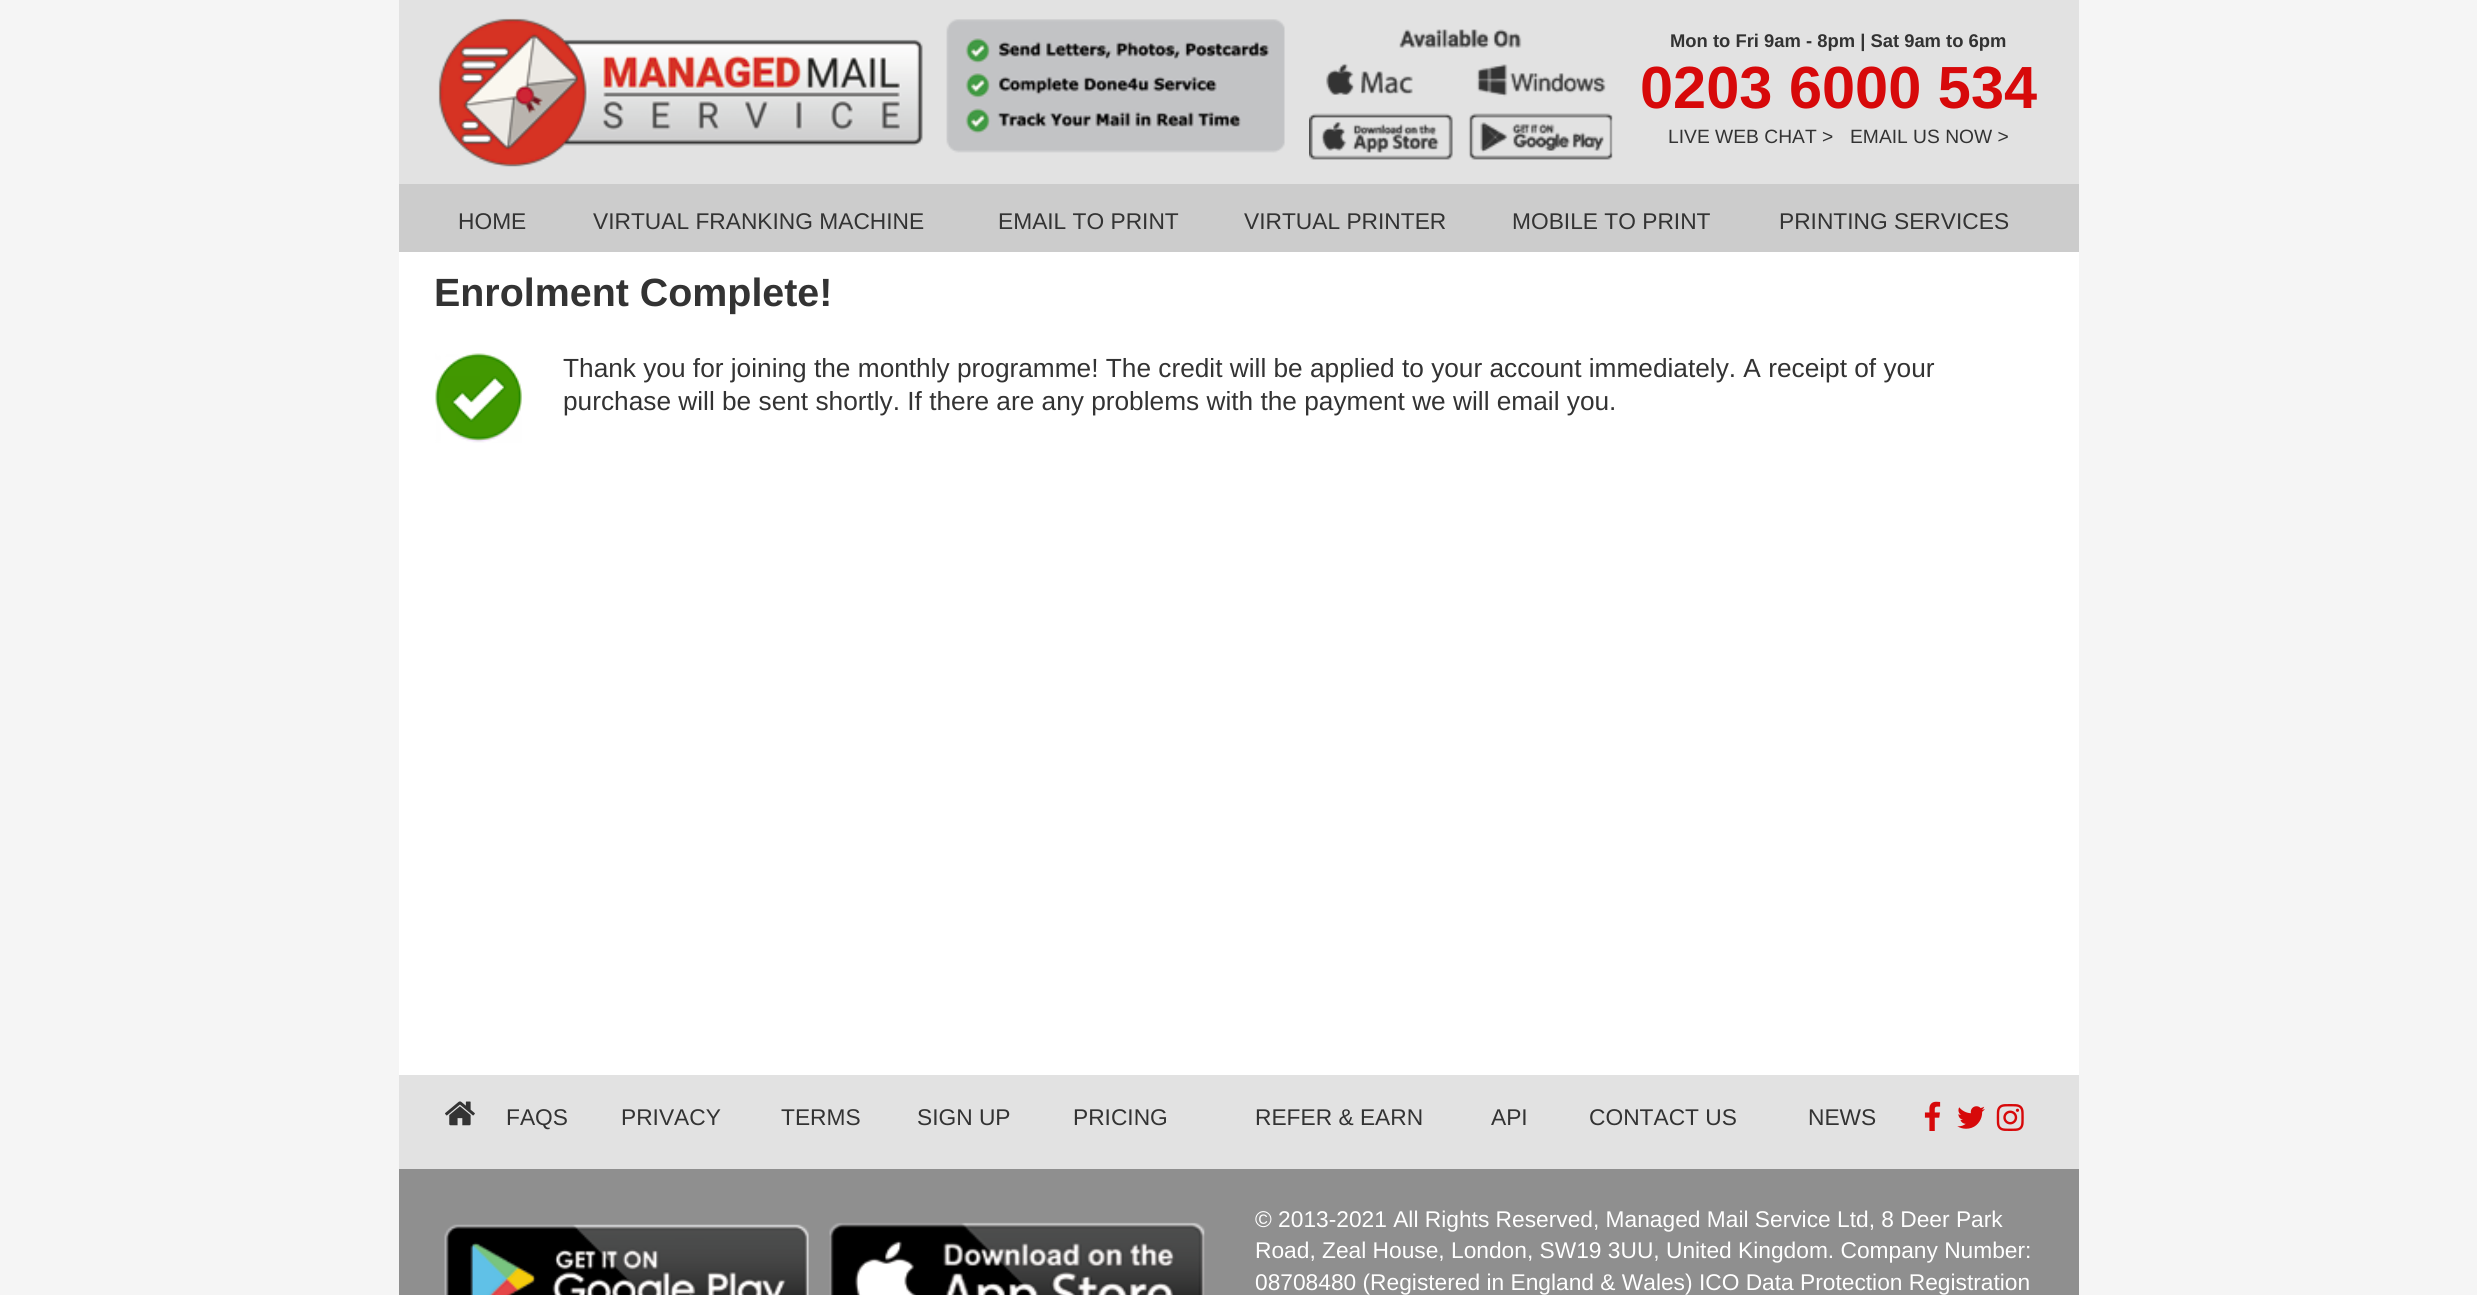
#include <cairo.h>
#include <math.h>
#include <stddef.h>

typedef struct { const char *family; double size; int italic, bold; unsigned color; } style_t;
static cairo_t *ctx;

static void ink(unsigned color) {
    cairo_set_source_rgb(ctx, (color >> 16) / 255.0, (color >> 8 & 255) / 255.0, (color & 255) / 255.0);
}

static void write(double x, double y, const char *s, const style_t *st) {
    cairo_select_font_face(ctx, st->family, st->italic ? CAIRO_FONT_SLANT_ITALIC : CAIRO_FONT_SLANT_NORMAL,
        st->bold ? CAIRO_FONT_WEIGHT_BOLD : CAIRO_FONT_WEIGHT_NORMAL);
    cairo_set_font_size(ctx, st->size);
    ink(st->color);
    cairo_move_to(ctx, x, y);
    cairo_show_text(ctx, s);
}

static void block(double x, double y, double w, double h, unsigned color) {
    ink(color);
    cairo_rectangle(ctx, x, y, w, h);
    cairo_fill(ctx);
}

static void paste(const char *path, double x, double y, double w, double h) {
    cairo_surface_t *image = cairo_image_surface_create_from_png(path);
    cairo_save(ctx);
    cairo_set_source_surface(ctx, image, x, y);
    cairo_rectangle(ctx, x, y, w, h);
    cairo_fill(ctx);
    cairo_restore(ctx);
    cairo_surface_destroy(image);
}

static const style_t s1 = {"Liberation Sans", 18.4, 0, 1, 0x333333};
static const style_t s2 = {"Liberation Sans", 59.5, 0, 1, 0xd7090a};
static const style_t s3 = {"Liberation Sans", 19.25, 0, 0, 0x333333};
static const style_t s4 = {"Liberation Sans", 22.75, 0, 0, 0x333333};
static const style_t s5 = {"Liberation Sans", 39.4, 0, 1, 0x333333};
static const style_t s6 = {"Liberation Sans", 26.25, 0, 0, 0x333333};
static const style_t s7 = {"Liberation Sans", 22.75, 0, 0, 0xffffff};

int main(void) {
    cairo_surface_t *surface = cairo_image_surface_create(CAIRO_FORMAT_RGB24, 2477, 1295);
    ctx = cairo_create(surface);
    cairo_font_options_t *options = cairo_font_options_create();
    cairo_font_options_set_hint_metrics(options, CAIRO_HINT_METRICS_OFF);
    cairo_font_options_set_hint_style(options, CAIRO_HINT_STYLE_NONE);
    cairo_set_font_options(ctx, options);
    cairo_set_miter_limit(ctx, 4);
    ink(0xf5f5f5);
    cairo_paint(ctx);
    block(399, 252, 1680, 823, 0xffffff);
    block(399, 184, 1680, 68, 0xcccccc);
    block(399, 0, 1680, 184, 0xe2e2e2);
    paste("pic1.png", 438, 18, 485, 149);
    paste("pic2.png", 946, 19, 339, 134);
    paste("pic3.png", 1309, 29, 304, 131);
    write(1670, 47, "Mon to Fri 9am - 8pm | Sat 9am to 6pm", &s1);
    write(1640, 108, "0203 6000 534", &s2);
    write(1668, 143, "LIVE WEB CHAT >", &s3);
    write(1850, 143, "EMAIL US NOW >", &s3);
    write(458, 229, "HOME", &s4);
    write(593, 229, "VIRTUAL FRANKING MACHINE", &s4);
    write(998, 229, "EMAIL TO PRINT", &s4);
    write(1244, 229, "VIRTUAL PRINTER", &s4);
    write(1512, 229, "MOBILE TO PRINT", &s4);
    write(1779, 229, "PRINTING SERVICES", &s4);
    write(434, 306, "Enrolment Complete!", &s5);
    paste("pic4.png", 435, 353, 87, 90);
    write(563, 377, "Thank you for joining the monthly programme! The credit will be applied to your account immediately. A receipt of your", &s6);
    write(563, 410, "purchase will be sent shortly. If there are any problems with the payment we will email you.", &s6);
    block(399, 1075, 1680, 94, 0xe2e2e2);
    paste("pic5.png", 445, 1101, 30, 25);
    write(506, 1125, "FAQS", &s4);
    write(621, 1125, "PRIVACY", &s4);
    write(781, 1125, "TERMS", &s4);
    write(917, 1125, "SIGN UP", &s4);
    write(1073, 1125, "PRICING", &s4);
    write(1255, 1125, "REFER & EARN", &s4);
    write(1491, 1125, "API", &s4);
    write(1589, 1125, "CONTACT US", &s4);
    write(1808, 1125, "NEWS", &s4);
    paste("pic6.png", 1924, 1101, 17, 30);
    paste("pic7.png", 1957, 1106, 28, 23);
    paste("pic8.png", 1996, 1104, 28, 27);
    block(399, 1169, 1680, 126, 0x8f8f8f);
    paste("pic9.png", 444, 1224, 365, 71);
    paste("pic10.png", 829, 1222, 376, 73);
    write(1255, 1227, "© 2013-2021 All Rights Reserved, Managed Mail Service Ltd, 8 Deer Park", &s7);
    write(1255, 1258, "Road, Zeal House, London, SW19 3UU, United Kingdom. Company Number:", &s7);
    write(1255, 1290, "08708480 (Registered in England & Wales) ICO Data Protection Registration", &s7);
    cairo_surface_write_to_png(surface, "screenshot.png");
    cairo_font_options_destroy(options);
    cairo_destroy(ctx);
    cairo_surface_destroy(surface);
    return 0;
}
